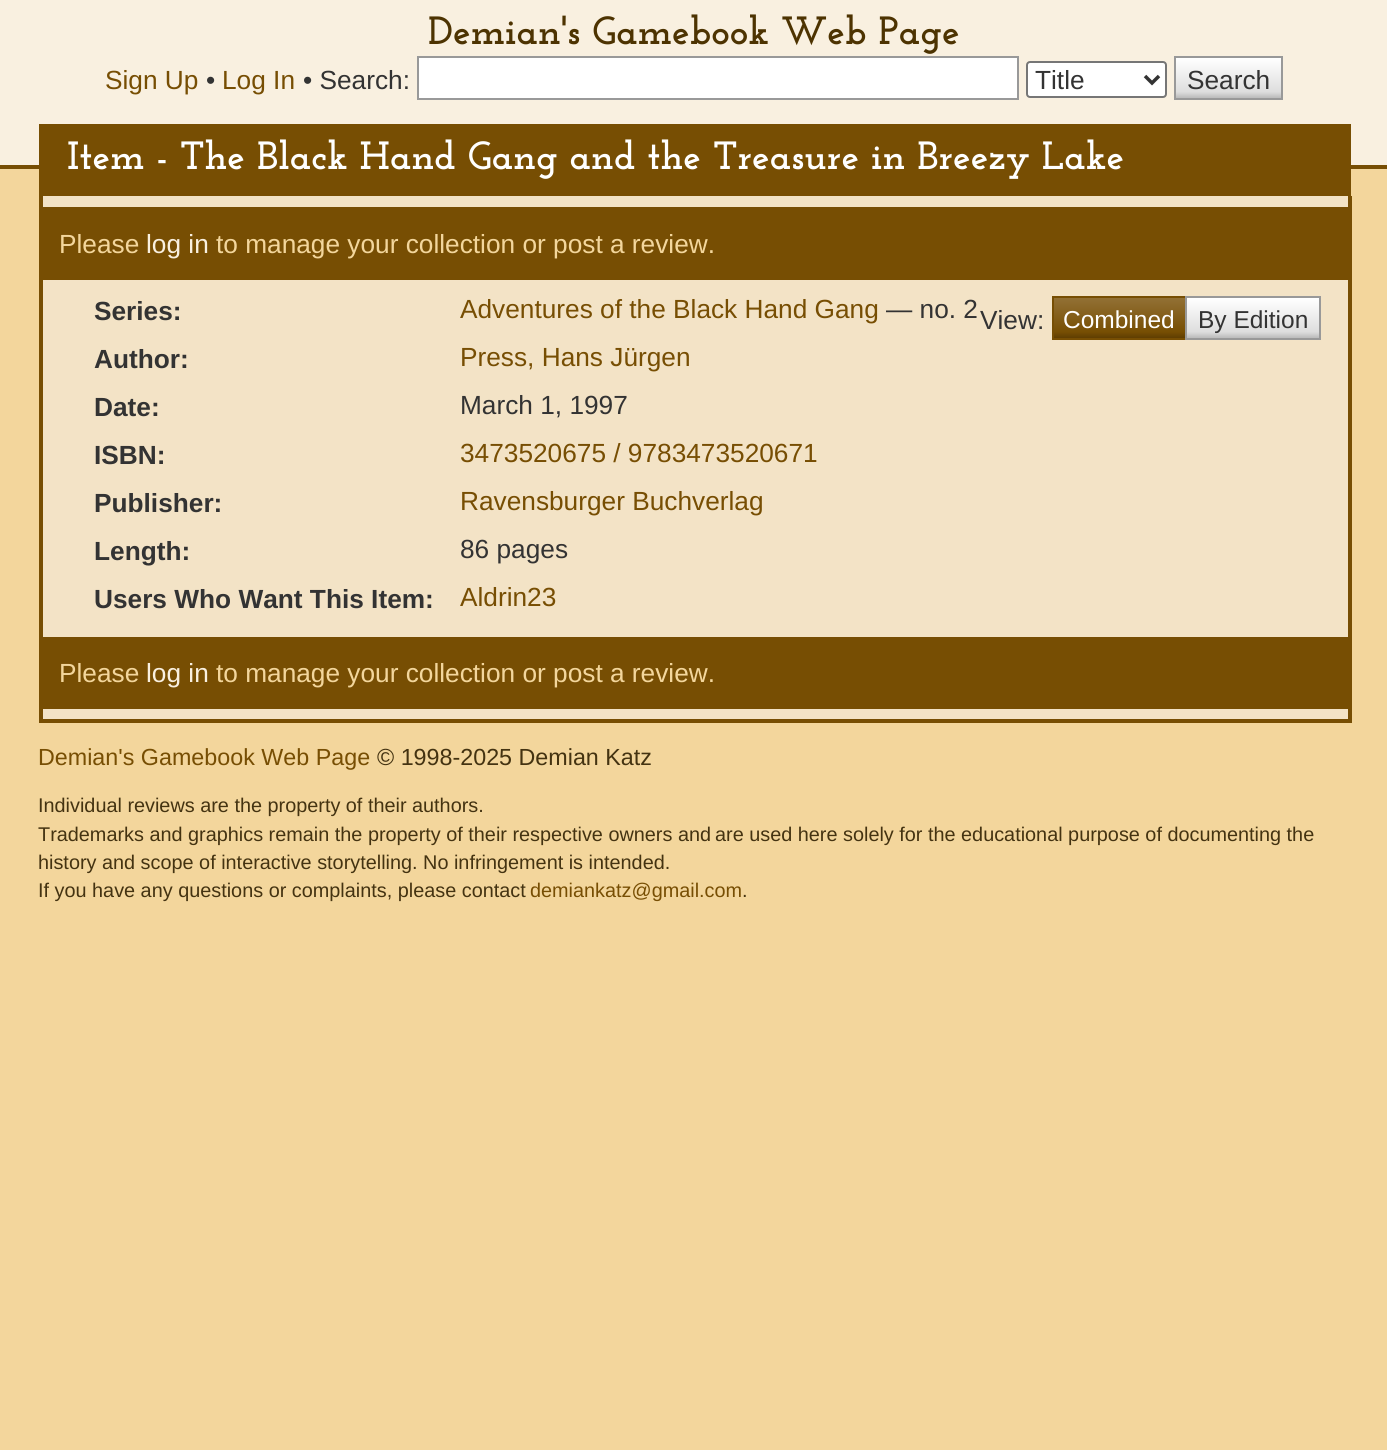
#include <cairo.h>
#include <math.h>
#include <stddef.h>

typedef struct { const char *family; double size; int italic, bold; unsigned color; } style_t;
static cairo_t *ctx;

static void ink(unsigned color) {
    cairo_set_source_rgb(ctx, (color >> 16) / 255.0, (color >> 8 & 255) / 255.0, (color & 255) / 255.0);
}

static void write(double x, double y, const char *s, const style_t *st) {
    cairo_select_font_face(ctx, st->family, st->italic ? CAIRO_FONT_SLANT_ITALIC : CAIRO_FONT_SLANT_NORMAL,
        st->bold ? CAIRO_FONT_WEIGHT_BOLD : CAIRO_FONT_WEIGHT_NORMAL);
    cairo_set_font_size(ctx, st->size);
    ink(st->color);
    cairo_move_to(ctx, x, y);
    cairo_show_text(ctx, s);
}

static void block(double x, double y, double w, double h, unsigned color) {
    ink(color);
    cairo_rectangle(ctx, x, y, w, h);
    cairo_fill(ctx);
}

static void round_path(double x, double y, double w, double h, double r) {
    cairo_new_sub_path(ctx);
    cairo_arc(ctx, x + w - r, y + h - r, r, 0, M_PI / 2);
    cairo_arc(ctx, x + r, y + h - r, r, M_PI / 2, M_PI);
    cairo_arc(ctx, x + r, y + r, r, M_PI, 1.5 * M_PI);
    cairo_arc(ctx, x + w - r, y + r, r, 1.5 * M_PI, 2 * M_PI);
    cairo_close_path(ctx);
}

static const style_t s1 = {"Josefin Slab", 39.4, 0, 1, 0x4d3301};
static const style_t s2 = {"Liberation Sans", 26.25, 0, 0, 0x774e03};
static const style_t s3 = {"Liberation Sans", 26.25, 0, 0, 0x333333};
static const style_t s4 = {"Josefin Slab", 39.4, 0, 1, 0xffffff};
static const style_t s5 = {"Liberation Sans", 26.25, 0, 0, 0xf3d69c};
static const style_t s6 = {"Liberation Sans", 26.25, 0, 0, 0xf9f0e0};
static const style_t s7 = {"Liberation Sans", 26.25, 0, 1, 0x333333};
static const style_t s8 = {"Liberation Sans", 24.5, 0, 0, 0xffffff};
static const style_t s9 = {"Liberation Sans", 24.5, 0, 0, 0x333333};
static const style_t s10 = {"Liberation Sans", 23.3, 0, 0, 0x774e03};
static const style_t s11 = {"Liberation Sans", 23.3, 0, 0, 0x443311};
static const style_t s12 = {"Liberation Sans", 19.85, 0, 0, 0x443311};
static const style_t s13 = {"Liberation Sans", 19.85, 0, 0, 0x774e03};

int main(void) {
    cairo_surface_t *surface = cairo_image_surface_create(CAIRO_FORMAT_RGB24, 1387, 1450);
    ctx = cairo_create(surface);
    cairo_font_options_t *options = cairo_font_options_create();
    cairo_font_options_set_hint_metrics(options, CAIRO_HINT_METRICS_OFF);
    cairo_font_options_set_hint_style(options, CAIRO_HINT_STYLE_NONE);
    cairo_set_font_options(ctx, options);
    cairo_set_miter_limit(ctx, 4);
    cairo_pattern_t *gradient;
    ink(0xf3d69c);
    cairo_paint(ctx);
    block(0, 0, 1387, 165, 0xf9f0e0);
    block(0, 165, 1387, 4, 0x774e03);
    write(428, 44, "Demian's Gamebook Web Page", &s1);
    write(105, 89, "Sign Up", &s2);
    write(206, 89, "•", &s3);
    write(222, 89, "Log In", &s2);
    write(303, 89, "• Search:", &s3);
    ink(0xffffff);
    cairo_rectangle(ctx, 418, 57, 600, 42);
    cairo_fill_preserve(ctx);
    ink(0x999999);
    cairo_stroke(ctx);
    ink(0xffffff);
    round_path(1027, 62, 139, 35, 3);
    cairo_fill_preserve(ctx);
    ink(0x767676);
    cairo_stroke(ctx);
    cairo_new_path(ctx);
    cairo_move_to(ctx, 1145, 76);
    cairo_line_to(ctx, 1152, 83);
    cairo_line_to(ctx, 1159, 76);
    ink(0x333333);
    cairo_set_line_width(ctx, 3.5);
    cairo_stroke(ctx);
    write(1035, 89, "Title", &s3);
    gradient = cairo_pattern_create_linear(1229, 58, 1229, 98);
    cairo_pattern_add_color_stop_rgba(gradient, 0, 1, 1, 1, 1);
    cairo_pattern_add_color_stop_rgba(gradient, 0.85, 0.867, 0.867, 0.867, 1);
    cairo_pattern_add_color_stop_rgba(gradient, 1, 0.733, 0.733, 0.733, 1);
    cairo_set_source(ctx, gradient);
    cairo_pattern_destroy(gradient);
    cairo_rectangle(ctx, 1176, 58, 105, 40);
    cairo_fill(ctx);
    cairo_rectangle(ctx, 1175, 57, 107, 42);
    ink(0x999999);
    cairo_set_line_width(ctx, 2);
    cairo_stroke(ctx);
    write(1187, 89, "Search", &s3);
    block(43, 196, 1305, 523, 0xf3e3c6);
    block(39, 124, 1312, 72, 0x774e03);
    write(67, 169, "Item - The Black Hand Gang and the Treasure in Breezy Lake", &s4);
    block(1348, 196, 4, 527, 0x774e03);
    block(39, 719, 1312, 4, 0x774e03);
    block(39, 196, 4, 527, 0x774e03);
    block(43, 207, 1305, 73, 0x774e03);
    write(59, 253, "Please", &s5);
    write(146, 253, "log in", &s6);
    write(216, 253, "to manage your collection or post a review.", &s5);
    write(94, 320, "Series:", &s7);
    write(460, 318, "Adventures of the Black Hand Gang", &s2);
    write(886, 318, "— no. 2", &s3);
    write(94, 368, "Author:", &s7);
    write(460, 366, "Press, Hans Jürgen", &s2);
    write(94, 416, "Date:", &s7);
    write(460, 414, "March 1, 1997", &s3);
    write(94, 464, "ISBN:", &s7);
    write(460, 462, "3473520675 / 9783473520671", &s2);
    write(94, 512, "Publisher:", &s7);
    write(460, 510, "Ravensburger Buchverlag", &s2);
    write(94, 560, "Length:", &s7);
    write(460, 558, "86 pages", &s3);
    write(94, 608, "Users Who Want This Item:", &s7);
    write(460, 606, "Aldrin23", &s2);
    write(980, 329, "View:", &s3);
    gradient = cairo_pattern_create_linear(1119, 298, 1119, 338);
    cairo_pattern_add_color_stop_rgba(gradient, 0, 0.573, 0.443, 0.208, 1);
    cairo_pattern_add_color_stop_rgba(gradient, 0.85, 0.467, 0.306, 0.012, 1);
    cairo_pattern_add_color_stop_rgba(gradient, 1, 0.373, 0.243, 0.008, 1);
    cairo_set_source(ctx, gradient);
    cairo_pattern_destroy(gradient);
    cairo_rectangle(ctx, 1054, 298, 131, 40);
    cairo_fill(ctx);
    cairo_rectangle(ctx, 1053, 297, 133, 42);
    ink(0x774e03);
    cairo_stroke(ctx);
    write(1063, 328, "Combined", &s8);
    gradient = cairo_pattern_create_linear(1253, 298, 1253, 338);
    cairo_pattern_add_color_stop_rgba(gradient, 0, 1, 1, 1, 1);
    cairo_pattern_add_color_stop_rgba(gradient, 0.85, 0.867, 0.867, 0.867, 1);
    cairo_pattern_add_color_stop_rgba(gradient, 1, 0.733, 0.733, 0.733, 1);
    cairo_set_source(ctx, gradient);
    cairo_pattern_destroy(gradient);
    cairo_rectangle(ctx, 1187, 298, 132, 40);
    cairo_fill(ctx);
    cairo_rectangle(ctx, 1186, 297, 134, 42);
    ink(0x999999);
    cairo_stroke(ctx);
    write(1198, 328, "By Edition", &s9);
    block(43, 637, 1305, 72, 0x774e03);
    write(59, 682, "Please", &s5);
    write(146, 682, "log in", &s6);
    write(216, 682, "to manage your collection or post a review.", &s5);
    write(38, 765, "Demian's Gamebook Web Page", &s10);
    write(377, 765, "© 1998-2025 Demian Katz", &s11);
    write(38, 812, "Individual reviews are the property of their authors.", &s12);
    write(38, 841, "Trademarks and graphics remain the property of their respective owners and", &s12);
    write(715, 841, "are used here solely for the educational purpose of documenting the", &s12);
    write(38, 869, "history and scope of interactive storytelling. No infringement is intended.", &s12);
    write(38, 897, "If you have any questions or complaints, please contact", &s12);
    write(530, 897, "demiankatz@gmail.com", &s13);
    write(742, 897, ".", &s12);
    cairo_surface_write_to_png(surface, "screenshot.png");
    cairo_font_options_destroy(options);
    cairo_destroy(ctx);
    cairo_surface_destroy(surface);
    return 0;
}
